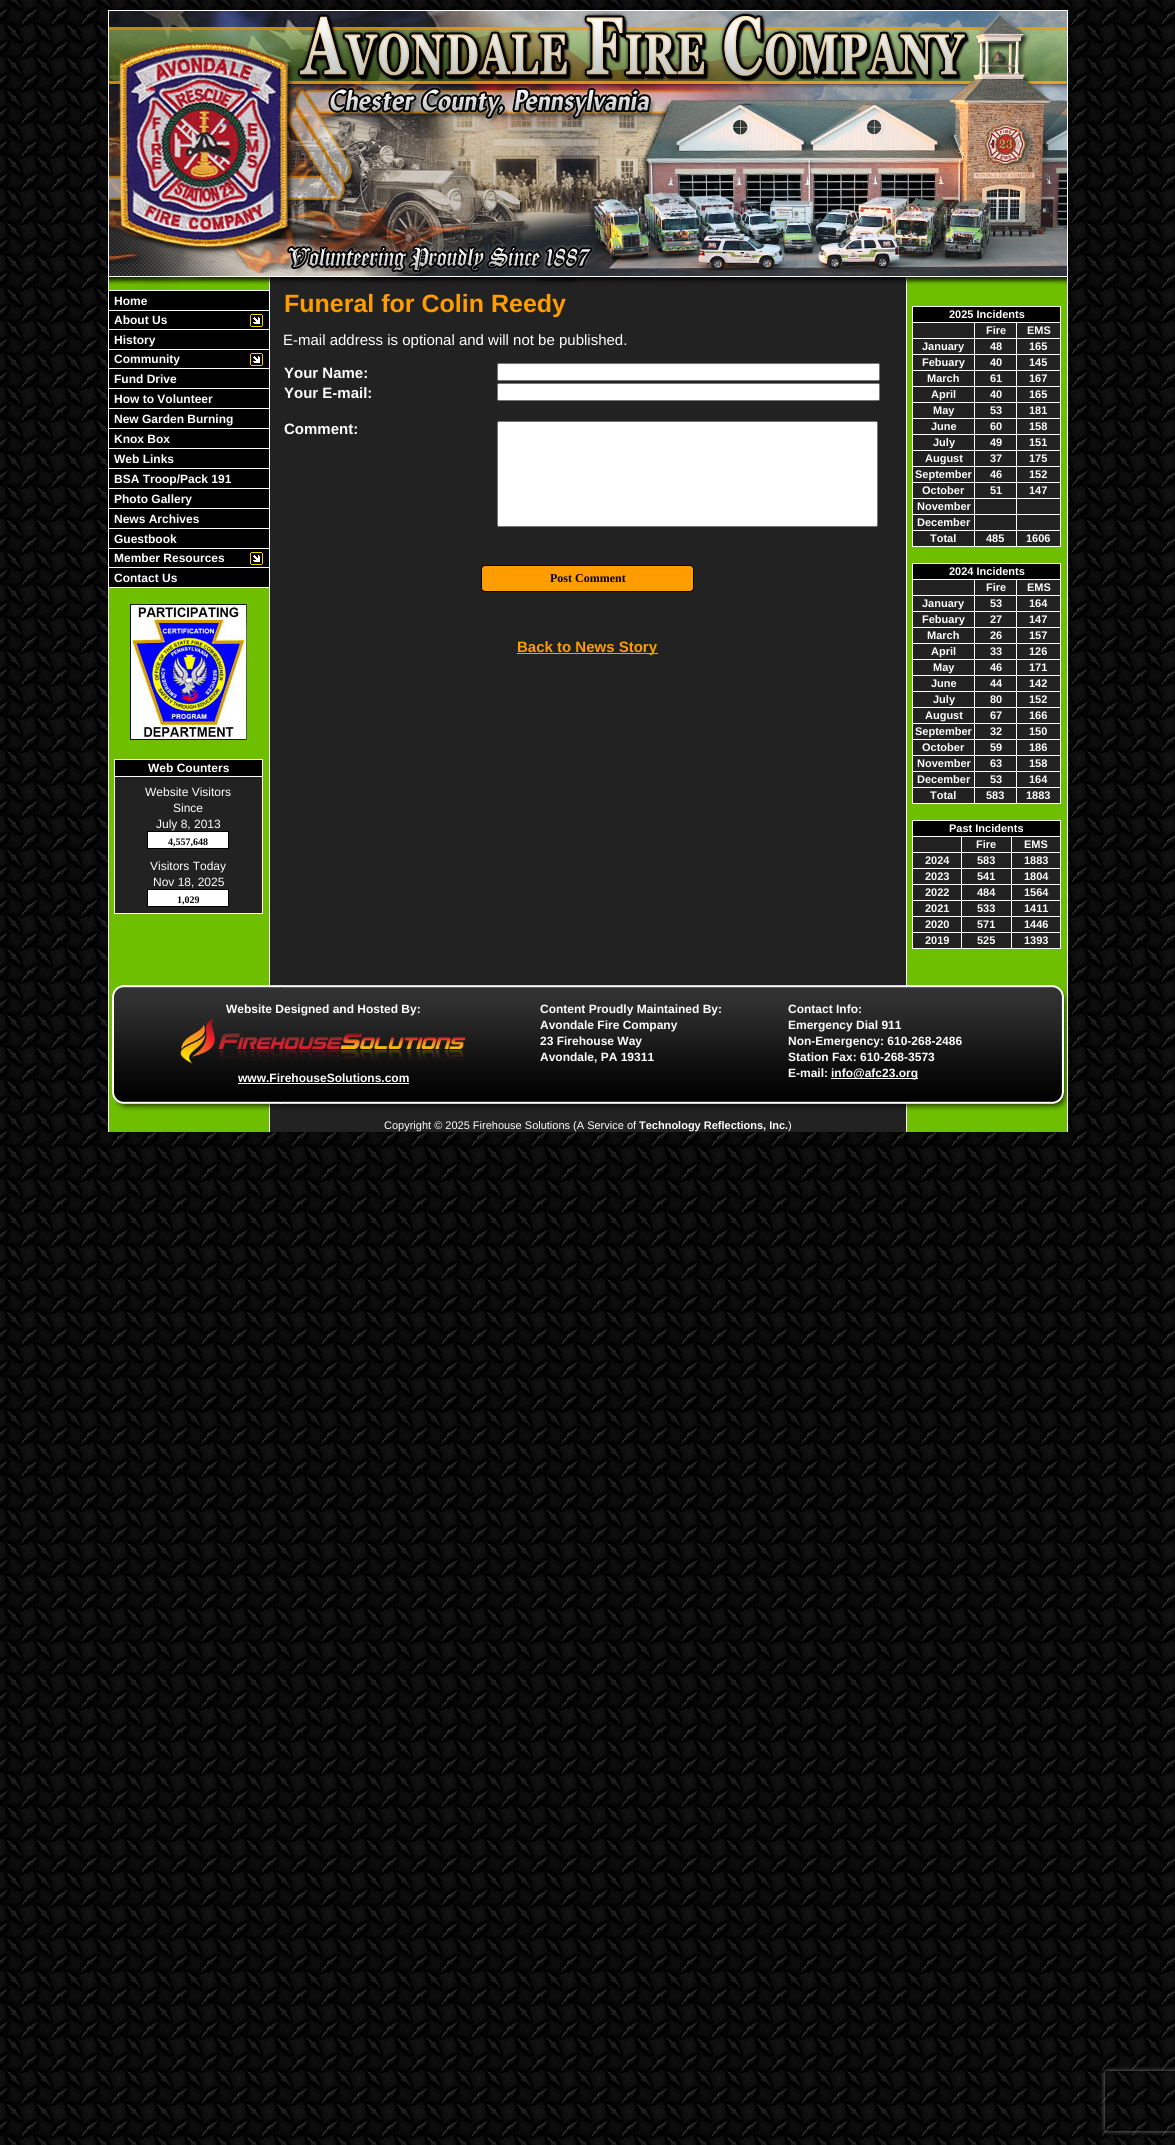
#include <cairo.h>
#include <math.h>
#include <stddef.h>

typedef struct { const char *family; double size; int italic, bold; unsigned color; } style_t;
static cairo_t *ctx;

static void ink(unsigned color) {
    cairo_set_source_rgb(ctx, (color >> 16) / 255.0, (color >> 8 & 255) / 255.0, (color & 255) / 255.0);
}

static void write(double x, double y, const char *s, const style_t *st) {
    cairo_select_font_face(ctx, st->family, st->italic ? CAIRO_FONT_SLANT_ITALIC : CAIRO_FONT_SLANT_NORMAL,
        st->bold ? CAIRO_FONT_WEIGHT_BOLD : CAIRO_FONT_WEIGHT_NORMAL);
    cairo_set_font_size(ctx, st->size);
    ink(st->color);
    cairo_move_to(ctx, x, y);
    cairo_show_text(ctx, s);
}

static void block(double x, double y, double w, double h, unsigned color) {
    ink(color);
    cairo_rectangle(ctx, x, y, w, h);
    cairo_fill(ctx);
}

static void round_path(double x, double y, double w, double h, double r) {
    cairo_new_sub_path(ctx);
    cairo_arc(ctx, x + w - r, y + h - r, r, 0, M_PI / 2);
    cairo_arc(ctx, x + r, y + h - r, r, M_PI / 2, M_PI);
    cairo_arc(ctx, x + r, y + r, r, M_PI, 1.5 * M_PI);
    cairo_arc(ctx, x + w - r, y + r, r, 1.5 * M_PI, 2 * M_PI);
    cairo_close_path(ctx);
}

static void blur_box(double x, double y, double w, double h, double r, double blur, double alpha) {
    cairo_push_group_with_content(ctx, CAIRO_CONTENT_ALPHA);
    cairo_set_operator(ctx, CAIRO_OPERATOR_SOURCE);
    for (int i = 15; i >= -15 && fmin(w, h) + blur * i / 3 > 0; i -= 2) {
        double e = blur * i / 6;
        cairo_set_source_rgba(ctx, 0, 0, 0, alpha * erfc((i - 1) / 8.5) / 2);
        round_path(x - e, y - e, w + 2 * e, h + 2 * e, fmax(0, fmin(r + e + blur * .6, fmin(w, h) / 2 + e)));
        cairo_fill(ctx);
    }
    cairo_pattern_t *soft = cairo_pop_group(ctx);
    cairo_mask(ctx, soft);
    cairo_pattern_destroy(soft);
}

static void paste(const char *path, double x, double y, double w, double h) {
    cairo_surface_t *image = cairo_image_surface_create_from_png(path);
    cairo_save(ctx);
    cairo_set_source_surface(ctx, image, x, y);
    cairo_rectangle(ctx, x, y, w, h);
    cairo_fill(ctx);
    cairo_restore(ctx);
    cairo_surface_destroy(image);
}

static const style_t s1 = {"Liberation Sans", 12, 0, 1, 0xffffff};
static const style_t s2 = {"Liberation Sans", 12, 0, 0, 0xffffff};
static const style_t s3 = {"Liberation Serif", 10, 0, 1, 0x000000};
static const style_t s4 = {"Liberation Sans", 25, 0, 1, 0xff9c00};
static const style_t s5 = {"Liberation Sans", 15, 0, 0, 0xffffff};
static const style_t s6 = {"Liberation Sans", 15, 0, 1, 0xffffff};
static const style_t s7 = {"Liberation Serif", 12, 0, 1, 0x000000};
static const style_t s8 = {"Liberation Sans", 15, 0, 1, 0xff9c00};
static const style_t s9 = {"Liberation Sans", 11, 0, 1, 0xffffff};
static const style_t s10 = {"Liberation Sans", 11, 0, 0, 0xffffff};

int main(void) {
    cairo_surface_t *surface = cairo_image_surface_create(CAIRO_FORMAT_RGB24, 1175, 2145);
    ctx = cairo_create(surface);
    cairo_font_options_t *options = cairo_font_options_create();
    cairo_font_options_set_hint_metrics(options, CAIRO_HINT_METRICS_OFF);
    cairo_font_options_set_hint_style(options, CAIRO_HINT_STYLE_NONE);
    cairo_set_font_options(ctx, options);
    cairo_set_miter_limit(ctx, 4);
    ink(0xffffff);
    cairo_paint(ctx);
    paste("pic1.png", 0, 0, 1175, 2145);
    paste("pic2.png", 108, 10, 960, 280);
    block(108, 290, 1, 675, 0xffffff);
    block(109, 588, 160, 377, 0x6dbf00);
    block(109, 290, 160, 1, 0xffffff);
    block(109, 291, 160, 296, 0x000000);
    write(114, 305, "Home", &s1);
    block(109, 310, 160, 1, 0xffffff);
    write(114, 324, "About Us", &s1);
    paste("pic3.png", 250, 314, 13, 13);
    block(109, 329, 160, 1, 0xffffff);
    write(114, 344, "History", &s1);
    block(109, 349, 160, 1, 0xffffff);
    write(114, 363, "Community", &s1);
    paste("pic3.png", 250, 353, 13, 13);
    block(109, 368, 160, 1, 0xffffff);
    write(114, 383, "Fund Drive", &s1);
    block(109, 388, 160, 1, 0xffffff);
    write(114, 403, "How to Volunteer", &s1);
    block(109, 408, 160, 1, 0xffffff);
    write(114, 423, "New Garden Burning", &s1);
    block(109, 428, 160, 1, 0xffffff);
    write(114, 443, "Knox Box", &s1);
    block(109, 448, 160, 1, 0xffffff);
    write(114, 463, "Web Links", &s1);
    block(109, 468, 160, 1, 0xffffff);
    write(114, 483, "BSA Troop/Pack 191", &s1);
    block(109, 488, 160, 1, 0xffffff);
    write(114, 503, "Photo Gallery", &s1);
    block(109, 508, 160, 1, 0xffffff);
    write(114, 523, "News Archives", &s1);
    block(109, 528, 160, 1, 0xffffff);
    write(114, 543, "Guestbook", &s1);
    block(109, 548, 160, 1, 0xffffff);
    write(114, 562, "Member Resources", &s1);
    paste("pic3.png", 250, 552, 13, 13);
    block(109, 567, 160, 1, 0xffffff);
    write(114, 582, "Contact Us", &s1);
    block(109, 587, 160, 1, 0xffffff);
    paste("pic4.png", 130, 604, 117, 136);
    block(114, 759, 149, 155, 0xffffff);
    block(115, 760, 147, 16, 0x000000);
    write(148, 772, "Web Counters", &s1);
    block(115, 777, 147, 136, 0x222222);
    write(145, 796, "Website Visitors", &s2);
    write(173, 812, "Since", &s2);
    write(156, 828, "July 8, 2013", &s2);
    block(147, 831, 82, 18, 0x000000);
    block(148, 832, 80, 16, 0xffffff);
    write(168, 845, "4,557,648", &s3);
    write(150, 870, "Visitors Today", &s2);
    write(153, 886, "Nov 18, 2025", &s2);
    block(147, 889, 82, 18, 0x000000);
    block(148, 890, 80, 16, 0xffffff);
    write(177, 903, "1,029", &s3);
    block(269, 290, 1, 675, 0xffffff);
    block(270, 290, 636, 675, 0x222222);
    write(284, 312, "Funeral for Colin Reedy", &s4);
    write(283, 345, "E-mail address is optional and will not be published.", &s5);
    write(284, 378, "Your Name:", &s6);
    round_path(497.5, 363.5, 382, 17, 1.5);
    cairo_fill_preserve(ctx);
    ink(0x767676);
    cairo_set_line_width(ctx, 1);
    cairo_stroke(ctx);
    write(284, 398, "Your E-mail:", &s6);
    round_path(497.5, 383.5, 382, 17, 1.5);
    cairo_fill_preserve(ctx);
    ink(0x767676);
    cairo_stroke(ctx);
    write(284, 434, "Comment:", &s6);
    round_path(497.5, 421.5, 380, 105, 1.5);
    cairo_fill_preserve(ctx);
    ink(0x767676);
    cairo_stroke(ctx);
    ink(0xff9c00);
    round_path(481.5, 565.5, 212, 26, 3.5);
    cairo_fill_preserve(ctx);
    ink(0x000000);
    cairo_stroke(ctx);
    write(550, 582, "Post Comment", &s7);
    block(517, 653, 141, 1, 0xff9c00);
    write(517, 652, "Back to News Story", &s8);
    block(906, 290, 1, 675, 0xffffff);
    block(907, 290, 160, 675, 0x6dbf00);
    block(912, 306, 149, 241, 0xffffff);
    block(913, 307, 147, 15, 0x000000);
    write(949, 318, "2025 Incidents", &s9);
    block(913, 323, 61, 15, 0x222222);
    block(975, 323, 41, 15, 0x222222);
    write(986, 334, "Fire", &s9);
    block(1017, 323, 43, 15, 0x222222);
    write(1027, 334, "EMS", &s9);
    block(913, 339, 61, 15, 0x222222);
    write(922, 350, "January", &s9);
    block(975, 339, 41, 15, 0x222222);
    write(990, 350, "48", &s9);
    block(1017, 339, 43, 15, 0x222222);
    write(1029, 350, "165", &s9);
    block(913, 355, 61, 15, 0x222222);
    write(922, 366, "Febuary", &s9);
    block(975, 355, 41, 15, 0x222222);
    write(990, 366, "40", &s9);
    block(1017, 355, 43, 15, 0x222222);
    write(1029, 366, "145", &s9);
    block(913, 371, 61, 15, 0x222222);
    write(927, 382, "March", &s9);
    block(975, 371, 41, 15, 0x222222);
    write(990, 382, "61", &s9);
    block(1017, 371, 43, 15, 0x222222);
    write(1029, 382, "167", &s9);
    block(913, 387, 61, 15, 0x222222);
    write(931, 398, "April", &s9);
    block(975, 387, 41, 15, 0x222222);
    write(990, 398, "40", &s9);
    block(1017, 387, 43, 15, 0x222222);
    write(1029, 398, "165", &s9);
    block(913, 403, 61, 15, 0x222222);
    write(933, 414, "May", &s9);
    block(975, 403, 41, 15, 0x222222);
    write(990, 414, "53", &s9);
    block(1017, 403, 43, 15, 0x222222);
    write(1029, 414, "181", &s9);
    block(913, 419, 61, 15, 0x222222);
    write(931, 430, "June", &s9);
    block(975, 419, 41, 15, 0x222222);
    write(990, 430, "60", &s9);
    block(1017, 419, 43, 15, 0x222222);
    write(1029, 430, "158", &s9);
    block(913, 435, 61, 15, 0x222222);
    write(933, 446, "July", &s9);
    block(975, 435, 41, 15, 0x222222);
    write(990, 446, "49", &s9);
    block(1017, 435, 43, 15, 0x222222);
    write(1029, 446, "151", &s9);
    block(913, 451, 61, 15, 0x222222);
    write(925, 462, "August", &s9);
    block(975, 451, 41, 15, 0x222222);
    write(990, 462, "37", &s9);
    block(1017, 451, 43, 15, 0x222222);
    write(1029, 462, "175", &s9);
    block(913, 467, 61, 15, 0x222222);
    write(915, 478, "September", &s9);
    block(975, 467, 41, 15, 0x222222);
    write(990, 478, "46", &s9);
    block(1017, 467, 43, 15, 0x222222);
    write(1029, 478, "152", &s9);
    block(913, 483, 61, 15, 0x222222);
    write(922, 494, "October", &s9);
    block(975, 483, 41, 15, 0x222222);
    write(990, 494, "51", &s9);
    block(1017, 483, 43, 15, 0x222222);
    write(1029, 494, "147", &s9);
    block(913, 499, 61, 15, 0x222222);
    write(917, 510, "November", &s9);
    block(975, 499, 41, 15, 0x222222);
    block(1017, 499, 43, 15, 0x222222);
    block(913, 515, 61, 15, 0x222222);
    write(917, 526, "December", &s9);
    block(975, 515, 41, 15, 0x222222);
    block(1017, 515, 43, 15, 0x222222);
    block(913, 531, 61, 15, 0x222222);
    write(930, 542, "Total", &s9);
    block(975, 531, 41, 15, 0x222222);
    write(986, 542, "485", &s9);
    block(1017, 531, 43, 15, 0x222222);
    write(1026, 542, "1606", &s9);
    block(912, 563, 149, 241, 0xffffff);
    block(913, 564, 147, 15, 0x000000);
    write(949, 575, "2024 Incidents", &s9);
    block(913, 580, 61, 15, 0x222222);
    block(975, 580, 41, 15, 0x222222);
    write(986, 591, "Fire", &s9);
    block(1017, 580, 43, 15, 0x222222);
    write(1027, 591, "EMS", &s9);
    block(913, 596, 61, 15, 0x222222);
    write(922, 607, "January", &s9);
    block(975, 596, 41, 15, 0x222222);
    write(990, 607, "53", &s9);
    block(1017, 596, 43, 15, 0x222222);
    write(1029, 607, "164", &s9);
    block(913, 612, 61, 15, 0x222222);
    write(922, 623, "Febuary", &s9);
    block(975, 612, 41, 15, 0x222222);
    write(990, 623, "27", &s9);
    block(1017, 612, 43, 15, 0x222222);
    write(1029, 623, "147", &s9);
    block(913, 628, 61, 15, 0x222222);
    write(927, 639, "March", &s9);
    block(975, 628, 41, 15, 0x222222);
    write(990, 639, "26", &s9);
    block(1017, 628, 43, 15, 0x222222);
    write(1029, 639, "157", &s9);
    block(913, 644, 61, 15, 0x222222);
    write(931, 655, "April", &s9);
    block(975, 644, 41, 15, 0x222222);
    write(990, 655, "33", &s9);
    block(1017, 644, 43, 15, 0x222222);
    write(1029, 655, "126", &s9);
    block(913, 660, 61, 15, 0x222222);
    write(933, 671, "May", &s9);
    block(975, 660, 41, 15, 0x222222);
    write(990, 671, "46", &s9);
    block(1017, 660, 43, 15, 0x222222);
    write(1029, 671, "171", &s9);
    block(913, 676, 61, 15, 0x222222);
    write(931, 687, "June", &s9);
    block(975, 676, 41, 15, 0x222222);
    write(990, 687, "44", &s9);
    block(1017, 676, 43, 15, 0x222222);
    write(1029, 687, "142", &s9);
    block(913, 692, 61, 15, 0x222222);
    write(933, 703, "July", &s9);
    block(975, 692, 41, 15, 0x222222);
    write(990, 703, "80", &s9);
    block(1017, 692, 43, 15, 0x222222);
    write(1029, 703, "152", &s9);
    block(913, 708, 61, 15, 0x222222);
    write(925, 719, "August", &s9);
    block(975, 708, 41, 15, 0x222222);
    write(990, 719, "67", &s9);
    block(1017, 708, 43, 15, 0x222222);
    write(1029, 719, "166", &s9);
    block(913, 724, 61, 15, 0x222222);
    write(915, 735, "September", &s9);
    block(975, 724, 41, 15, 0x222222);
    write(990, 735, "32", &s9);
    block(1017, 724, 43, 15, 0x222222);
    write(1029, 735, "150", &s9);
    block(913, 740, 61, 15, 0x222222);
    write(922, 751, "October", &s9);
    block(975, 740, 41, 15, 0x222222);
    write(990, 751, "59", &s9);
    block(1017, 740, 43, 15, 0x222222);
    write(1029, 751, "186", &s9);
    block(913, 756, 61, 15, 0x222222);
    write(917, 767, "November", &s9);
    block(975, 756, 41, 15, 0x222222);
    write(990, 767, "63", &s9);
    block(1017, 756, 43, 15, 0x222222);
    write(1029, 767, "158", &s9);
    block(913, 772, 61, 15, 0x222222);
    write(917, 783, "December", &s9);
    block(975, 772, 41, 15, 0x222222);
    write(990, 783, "53", &s9);
    block(1017, 772, 43, 15, 0x222222);
    write(1029, 783, "164", &s9);
    block(913, 788, 61, 15, 0x222222);
    write(930, 799, "Total", &s9);
    block(975, 788, 41, 15, 0x222222);
    write(986, 799, "583", &s9);
    block(1017, 788, 43, 15, 0x222222);
    write(1026, 799, "1883", &s9);
    block(912, 820, 149, 129, 0xffffff);
    block(913, 821, 147, 15, 0x000000);
    write(949, 832, "Past Incidents", &s9);
    block(913, 837, 48, 15, 0x222222);
    block(962, 837, 49, 15, 0x222222);
    write(976, 848, "Fire", &s9);
    block(1012, 837, 48, 15, 0x222222);
    write(1024, 848, "EMS", &s9);
    block(913, 853, 48, 15, 0x222222);
    write(925, 864, "2024", &s9);
    block(962, 853, 49, 15, 0x222222);
    write(977, 864, "583", &s9);
    block(1012, 853, 48, 15, 0x222222);
    write(1024, 864, "1883", &s9);
    block(913, 869, 48, 15, 0x222222);
    write(925, 880, "2023", &s9);
    block(962, 869, 49, 15, 0x222222);
    write(977, 880, "541", &s9);
    block(1012, 869, 48, 15, 0x222222);
    write(1024, 880, "1804", &s9);
    block(913, 885, 48, 15, 0x222222);
    write(925, 896, "2022", &s9);
    block(962, 885, 49, 15, 0x222222);
    write(977, 896, "484", &s9);
    block(1012, 885, 48, 15, 0x222222);
    write(1024, 896, "1564", &s9);
    block(913, 901, 48, 15, 0x222222);
    write(925, 912, "2021", &s9);
    block(962, 901, 49, 15, 0x222222);
    write(977, 912, "533", &s9);
    block(1012, 901, 48, 15, 0x222222);
    write(1024, 912, "1411", &s9);
    block(913, 917, 48, 15, 0x222222);
    write(925, 928, "2020", &s9);
    block(962, 917, 49, 15, 0x222222);
    write(977, 928, "571", &s9);
    block(1012, 917, 48, 15, 0x222222);
    write(1024, 928, "1446", &s9);
    block(913, 933, 48, 15, 0x222222);
    write(925, 944, "2019", &s9);
    block(962, 933, 49, 15, 0x222222);
    write(977, 944, "525", &s9);
    block(1012, 933, 48, 15, 0x222222);
    write(1024, 944, "1393", &s9);
    block(1067, 290, 1, 675, 0xffffff);
    paste("pic5.png", 108, 965, 960, 167);
    write(226, 1013, "Website Designed and Hosted By:", &s1);
    write(540, 1013, "Content Proudly Maintained By:", &s1);
    write(788, 1013, "Contact Info:", &s1);
    paste("pic6.png", 180, 1018, 286, 46);
    write(238, 1082, "www.FirehouseSolutions.com", &s1);
    block(238, 1083, 171, 1, 0xffffff);
    write(540, 1029, "Avondale Fire Company", &s1);
    write(540, 1045, "23 Firehouse Way", &s1);
    write(540, 1061, "Avondale, PA 19311", &s1);
    write(788, 1029, "Emergency Dial 911", &s1);
    write(788, 1045, "Non-Emergency: 610-268-2486", &s1);
    write(788, 1061, "Station Fax: 610-268-3573", &s1);
    write(788, 1077, "E-mail:", &s1);
    block(831, 1078, 87, 1, 0xffffff);
    write(831, 1077, "info@afc23.org", &s1);
    write(384, 1129, "Copyright © 2025 Firehouse Solutions (A Service of", &s10);
    write(639, 1129, "Technology Reflections, Inc.", &s9);
    write(788, 1129, ")", &s10);
    cairo_save(ctx);
    cairo_set_fill_rule(ctx, CAIRO_FILL_RULE_EVEN_ODD);
    cairo_new_path(ctx);
    cairo_move_to(ctx, 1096, 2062);
    cairo_line_to(ctx, 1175, 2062);
    cairo_line_to(ctx, 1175, 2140);
    cairo_line_to(ctx, 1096, 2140);
    cairo_close_path(ctx);
    cairo_move_to(ctx, 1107, 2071);
    cairo_line_to(ctx, 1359, 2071);
    cairo_curve_to(ctx, 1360, 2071, 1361, 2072, 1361, 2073);
    cairo_line_to(ctx, 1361, 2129);
    cairo_curve_to(ctx, 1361, 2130, 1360, 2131, 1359, 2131);
    cairo_line_to(ctx, 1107, 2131);
    cairo_curve_to(ctx, 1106, 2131, 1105, 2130, 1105, 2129);
    cairo_line_to(ctx, 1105, 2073);
    cairo_curve_to(ctx, 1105, 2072, 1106, 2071, 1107, 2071);
    cairo_close_path(ctx);
    cairo_clip(ctx);
    ink(0x808080);
    blur_box(1105, 2071, 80, 60, 2, 2.5, 1);
    cairo_restore(ctx);
    cairo_surface_write_to_png(surface, "screenshot.png");
    cairo_font_options_destroy(options);
    cairo_destroy(ctx);
    cairo_surface_destroy(surface);
    return 0;
}
